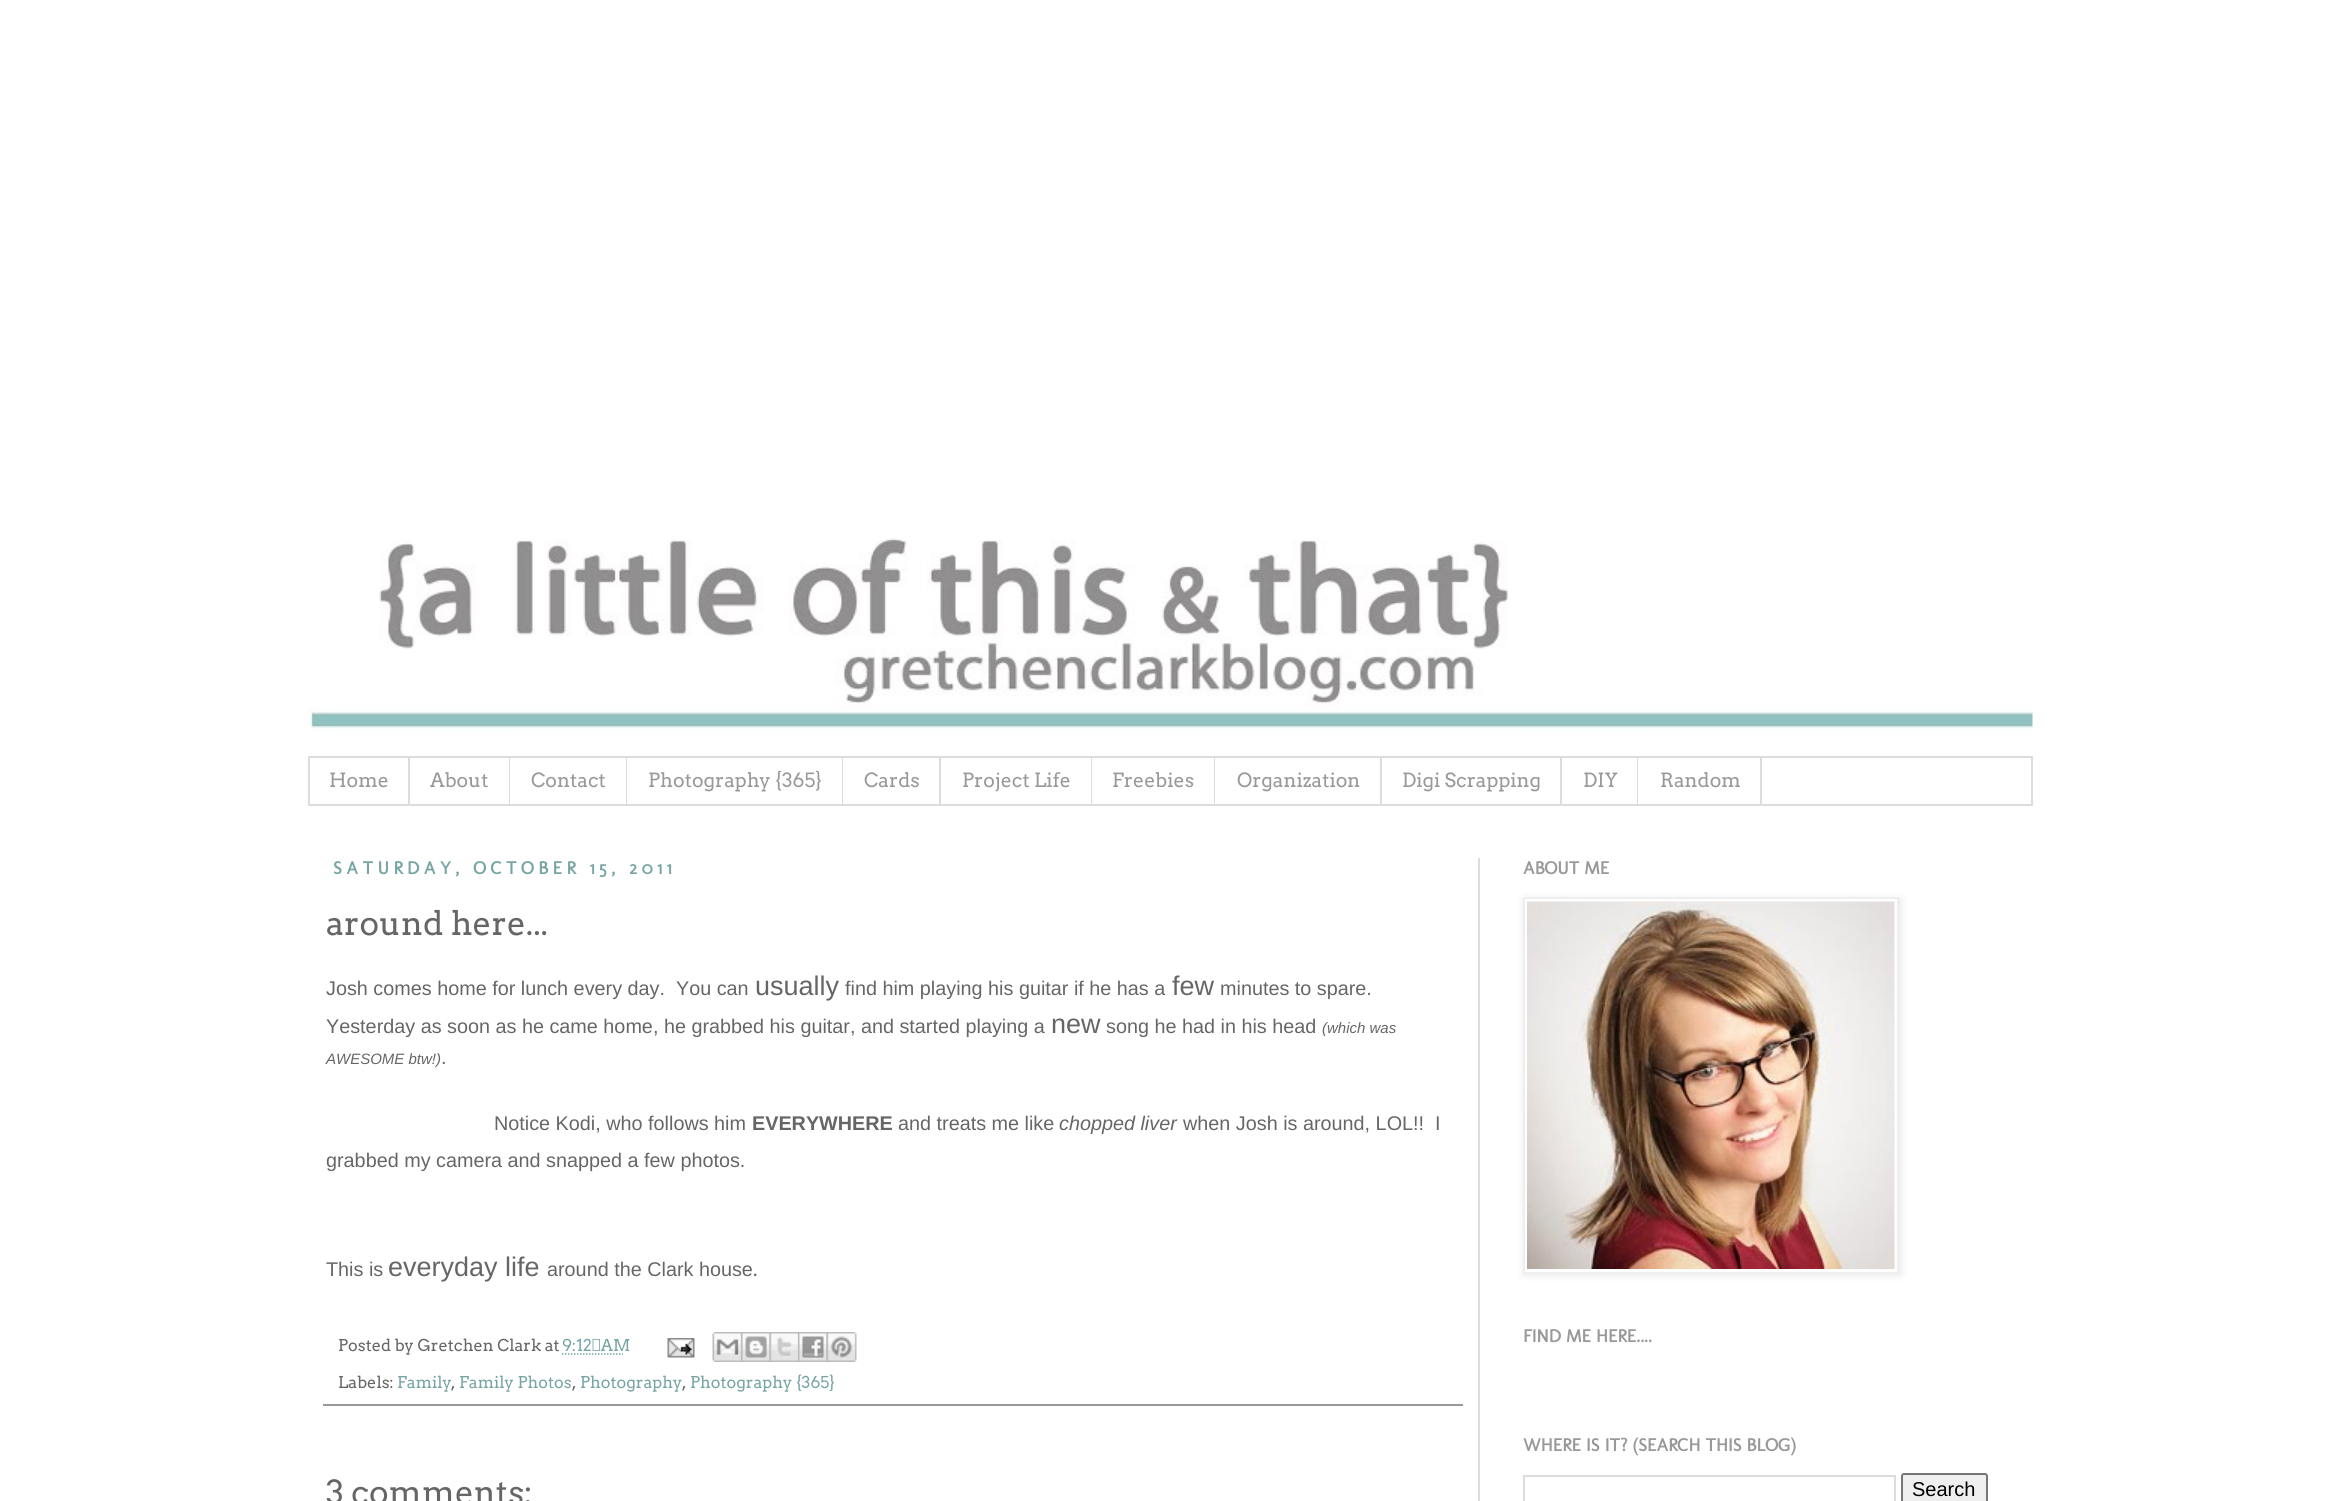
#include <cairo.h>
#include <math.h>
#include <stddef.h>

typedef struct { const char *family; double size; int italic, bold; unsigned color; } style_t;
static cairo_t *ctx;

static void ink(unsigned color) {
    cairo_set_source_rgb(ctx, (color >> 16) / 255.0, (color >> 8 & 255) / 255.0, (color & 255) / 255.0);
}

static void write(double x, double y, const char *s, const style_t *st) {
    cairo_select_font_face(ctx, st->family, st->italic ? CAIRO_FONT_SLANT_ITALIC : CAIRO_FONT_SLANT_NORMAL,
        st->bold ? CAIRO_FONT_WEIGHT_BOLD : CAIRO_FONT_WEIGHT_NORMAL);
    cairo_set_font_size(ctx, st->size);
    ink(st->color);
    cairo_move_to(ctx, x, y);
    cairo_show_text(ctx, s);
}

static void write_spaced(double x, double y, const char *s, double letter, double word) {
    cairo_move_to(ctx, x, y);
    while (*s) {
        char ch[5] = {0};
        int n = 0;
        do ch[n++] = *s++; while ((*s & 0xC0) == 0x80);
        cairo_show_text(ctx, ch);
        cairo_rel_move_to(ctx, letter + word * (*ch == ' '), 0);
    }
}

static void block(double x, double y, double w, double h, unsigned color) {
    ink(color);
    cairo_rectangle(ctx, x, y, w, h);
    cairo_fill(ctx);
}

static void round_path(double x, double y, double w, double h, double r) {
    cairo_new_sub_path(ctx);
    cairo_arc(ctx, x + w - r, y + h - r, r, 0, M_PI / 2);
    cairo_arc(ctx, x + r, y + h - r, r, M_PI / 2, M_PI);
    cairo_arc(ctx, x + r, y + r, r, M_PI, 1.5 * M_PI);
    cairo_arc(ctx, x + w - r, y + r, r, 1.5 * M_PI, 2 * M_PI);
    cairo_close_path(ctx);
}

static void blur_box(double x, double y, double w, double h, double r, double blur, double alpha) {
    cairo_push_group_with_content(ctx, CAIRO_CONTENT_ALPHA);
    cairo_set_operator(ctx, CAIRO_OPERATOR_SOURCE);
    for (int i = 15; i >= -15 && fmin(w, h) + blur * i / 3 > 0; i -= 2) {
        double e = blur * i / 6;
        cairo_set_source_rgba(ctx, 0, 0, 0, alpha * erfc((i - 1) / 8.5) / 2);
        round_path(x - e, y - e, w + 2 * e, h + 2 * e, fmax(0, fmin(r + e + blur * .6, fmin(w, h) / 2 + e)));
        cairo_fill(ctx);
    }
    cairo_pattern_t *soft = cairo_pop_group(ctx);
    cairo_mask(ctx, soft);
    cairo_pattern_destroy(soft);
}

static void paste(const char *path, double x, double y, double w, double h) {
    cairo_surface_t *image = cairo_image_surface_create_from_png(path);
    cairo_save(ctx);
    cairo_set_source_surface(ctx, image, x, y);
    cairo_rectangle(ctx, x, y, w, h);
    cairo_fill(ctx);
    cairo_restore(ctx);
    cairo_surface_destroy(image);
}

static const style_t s1 = {"Arvo", 19.5, 0, 0, 0x999999};
static const style_t s2 = {"Arvo", 33, 0, 0, 0x666666};
static const style_t s3 = {"Liberation Sans", 19.8, 0, 0, 0x666666};
static const style_t s4 = {"Liberation Sans", 27, 0, 0, 0x666666};
static const style_t s5 = {"Liberation Sans", 15, 1, 0, 0x666666};
static const style_t s6 = {"Liberation Sans", 19.8, 0, 1, 0x666666};
static const style_t s7 = {"Liberation Sans", 19.8, 1, 0, 0x666666};
static const style_t s8 = {"Arvo", 19.8, 0, 0, 0x666666};
static const style_t s9 = {"Arvo", 16.25, 0, 0, 0x666666};
static const style_t s10 = {"Arvo", 16.25, 0, 0, 0x76a5a3};
static const style_t s11 = {"Molengo", 18, 0, 1, 0x999999};
static const style_t s12 = {"Liberation Sans", 20, 0, 0, 0x000000};

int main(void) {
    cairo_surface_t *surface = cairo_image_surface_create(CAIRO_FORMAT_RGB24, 2339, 1501);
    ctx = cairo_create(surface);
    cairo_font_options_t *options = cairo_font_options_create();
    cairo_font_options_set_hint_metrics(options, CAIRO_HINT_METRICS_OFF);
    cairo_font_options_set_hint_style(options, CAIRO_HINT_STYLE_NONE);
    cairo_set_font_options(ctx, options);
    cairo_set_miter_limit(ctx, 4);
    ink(0xffffff);
    cairo_paint(ctx);
    paste("pic1.png", 308, 538, 1725, 194);
    cairo_rectangle(ctx, 309, 757, 1723, 48);
    ink(0xdddddd);
    cairo_stroke(ctx);
    block(408, 758, 2, 46, 0xdddddd);
    write(329, 787, "Home", &s1);
    block(509, 758, 1, 46, 0xdddddd);
    write(430, 787, "About", &s1);
    block(626, 758, 1, 46, 0xdddddd);
    write(531, 787, "Contact", &s1);
    block(842, 758, 1, 46, 0xdddddd);
    write(648, 787, "Photography {365}", &s1);
    block(939, 758, 2, 46, 0xdddddd);
    write(864, 787, "Cards", &s1);
    block(1091, 758, 1, 46, 0xdddddd);
    write(962, 787, "Project Life", &s1);
    block(1214, 758, 1, 46, 0xdddddd);
    write(1112, 787, "Freebies", &s1);
    block(1380, 758, 2, 46, 0xdddddd);
    write(1237, 787, "Organization", &s1);
    block(1560, 758, 2, 46, 0xdddddd);
    write(1402, 787, "Digi Scrapping", &s1);
    block(1637, 758, 1, 46, 0xdddddd);
    write(1583, 787, "DIY", &s1);
    block(1760, 758, 2, 46, 0xdddddd);
    write(1660, 787, "Random", &s1);
    block(1478, 858, 2, 643, 0xdddddd);
    cairo_select_font_face(ctx, "Molengo", CAIRO_FONT_SLANT_NORMAL, CAIRO_FONT_WEIGHT_BOLD);
    cairo_set_font_size(ctx, 18);
    ink(0x76a5a3);
    write_spaced(333, 874, "SATURDAY, OCTOBER 15, 2011", 4.5, 0);
    write(326, 935, "around here...", &s2);
    write(326, 995, "Josh comes home for lunch every day.  You can", &s3);
    write(755, 995, "usually", &s4);
    write(845, 995, "find him playing his guitar if he has a", &s3);
    write(1172, 995, "few", &s4);
    write(1220, 995, "minutes to spare.", &s3);
    write(326, 1033, "Yesterday as soon as he came home, he grabbed his guitar, and started playing a", &s3);
    write(1051, 1033, "new", &s4);
    write(1106, 1033, "song he had in his head", &s3);
    write(1322, 1033, "(which was", &s5);
    write(326, 1064, "AWESOME btw!)", &s5);
    write(441, 1064, ".", &s3);
    write(494, 1130, "Notice Kodi, who follows him", &s3);
    write(752, 1130, "EVERYWHERE", &s6);
    write(898, 1130, "and treats me like", &s3);
    write(1059, 1130, "chopped liver", &s7);
    write(1183, 1130, "when Josh is around, LOL!!  I", &s3);
    write(326, 1167, "grabbed my camera and snapped a few photos.", &s3);
    write(326, 1276, "This is", &s3);
    write(388, 1276, "everyday life", &s4);
    write(547, 1276, "around the Clark house", &s3);
    write(753, 1276, ".", &s8);
    block(323, 1404, 1140, 2, 0x999999);
    write(338, 1351, "Posted by Gretchen Clark at", &s9);
    write(562, 1351, "9:12 AM", &s10);
    cairo_new_path(ctx);
    cairo_move_to(ctx, 562, 1354);
    cairo_line_to(ctx, 623, 1354);
    cairo_set_line_width(ctx, 1.5);
    cairo_set_dash(ctx, (double[]){1.5, 1.5}, 2, 0);
    cairo_stroke(ctx);
    paste("pic2.png", 667, 1338, 28, 20);
    paste("pic3.png", 712, 1332, 29, 30);
    paste("pic4.png", 741, 1332, 29, 30);
    paste("pic5.png", 769, 1332, 29, 30);
    paste("pic6.png", 798, 1332, 29, 30);
    paste("pic7.png", 826, 1332, 31, 30);
    write(338, 1388, "Labels:", &s9);
    write(397, 1388, "Family", &s10);
    write(451, 1388, ",", &s9);
    write(459, 1388, "Family Photos", &s10);
    write(572, 1388, ",", &s9);
    write(580, 1388, "Photography", &s10);
    write(682, 1388, ",", &s9);
    write(690, 1388, "Photography {365}", &s10);
    write(326, 1504, "3 comments:", &s2);
    write(1523, 874, "ABOUT ME", &s11);
    ink(0x000000);
    blur_box(1524, 899, 377, 376, 0, 4, 0.1);
    ink(0xffffff);
    cairo_rectangle(ctx, 1524, 898, 374, 375);
    cairo_fill_preserve(ctx);
    ink(0xeeeeee);
    cairo_set_line_width(ctx, 2);
    cairo_set_dash(ctx, NULL, 0, 0);
    cairo_stroke(ctx);
    paste("pic8.png", 1527, 901, 368, 368);
    write(1523, 1342, "FIND ME HERE....", &s11);
    write(1523, 1451, "WHERE IS IT? (SEARCH THIS BLOG)", &s11);
    cairo_rectangle(ctx, 1524, 1476, 371, 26);
    ink(0xdddddd);
    cairo_stroke(ctx);
    ink(0xefefef);
    round_path(1902, 1474, 85, 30, 2);
    cairo_fill_preserve(ctx);
    ink(0x767676);
    cairo_stroke(ctx);
    write(1912, 1496, "Search", &s12);
    cairo_surface_write_to_png(surface, "screenshot.png");
    cairo_font_options_destroy(options);
    cairo_destroy(ctx);
    cairo_surface_destroy(surface);
    return 0;
}
